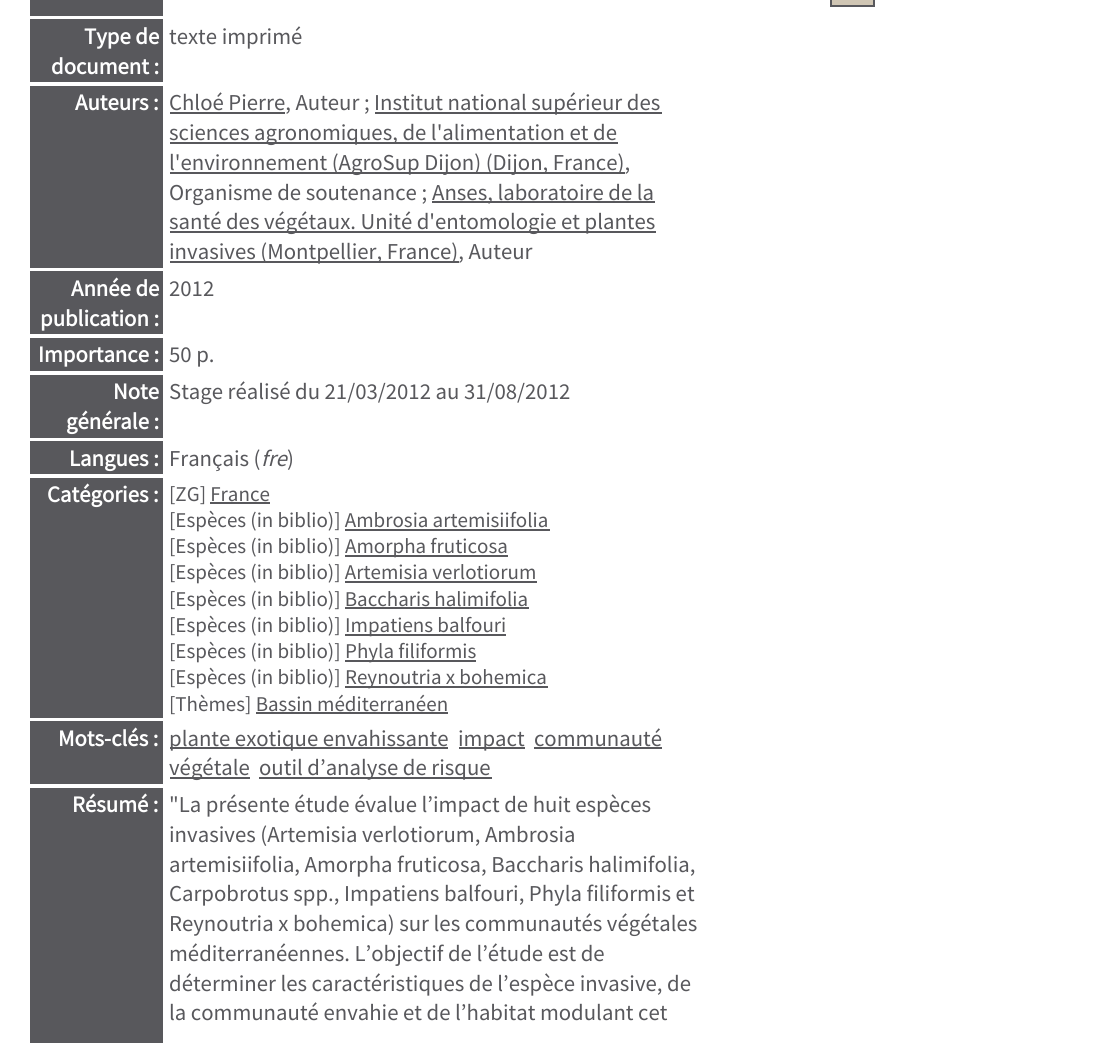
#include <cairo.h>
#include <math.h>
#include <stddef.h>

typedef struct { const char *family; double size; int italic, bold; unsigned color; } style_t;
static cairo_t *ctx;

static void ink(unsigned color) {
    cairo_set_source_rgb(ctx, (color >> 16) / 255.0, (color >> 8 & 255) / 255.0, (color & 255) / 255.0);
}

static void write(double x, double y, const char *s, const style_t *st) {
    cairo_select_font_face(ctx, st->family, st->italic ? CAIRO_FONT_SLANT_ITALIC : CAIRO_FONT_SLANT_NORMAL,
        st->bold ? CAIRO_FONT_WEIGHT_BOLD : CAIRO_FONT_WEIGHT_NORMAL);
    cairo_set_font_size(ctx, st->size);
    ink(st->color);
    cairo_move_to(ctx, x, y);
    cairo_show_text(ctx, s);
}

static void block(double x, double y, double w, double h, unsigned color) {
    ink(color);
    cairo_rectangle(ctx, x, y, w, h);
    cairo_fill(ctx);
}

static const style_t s1 = {"Source Sans Pro", 22.75, 0, 1, 0xffffff};
static const style_t s2 = {"Source Sans Pro", 22.75, 0, 0, 0x58585c};
static const style_t s3 = {"Source Sans Pro", 22.75, 1, 0, 0x58585c};
static const style_t s4 = {"Source Sans Pro", 21, 0, 0, 0x58585c};

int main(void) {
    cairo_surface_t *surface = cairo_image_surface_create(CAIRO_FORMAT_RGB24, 1117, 1043);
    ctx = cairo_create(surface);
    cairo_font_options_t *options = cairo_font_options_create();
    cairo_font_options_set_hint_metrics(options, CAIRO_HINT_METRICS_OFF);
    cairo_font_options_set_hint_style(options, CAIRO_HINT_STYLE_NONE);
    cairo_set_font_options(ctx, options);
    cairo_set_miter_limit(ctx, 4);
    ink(0xffffff);
    cairo_paint(ctx);
    ink(0xd0c6b4);
    cairo_rectangle(ctx, 831, -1, 43, 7);
    cairo_fill_preserve(ctx);
    ink(0x58585c);
    cairo_stroke(ctx);
    block(30, 0, 133, 16, 0x58585c);
    block(30, 19, 133, 63, 0x58585c);
    write(84, 44, "Type de", &s1);
    write(51, 74, "document :", &s1);
    write(169, 44, "texte imprimé", &s2);
    block(30, 86, 133, 182, 0x58585c);
    write(75, 110, "Auteurs :", &s1);
    block(170, 112, 115, 2, 0x58585c);
    write(169, 110, "Chloé Pierre, Auteur ;", &s2);
    block(375, 112, 287, 2, 0x58585c);
    write(374, 110, "Institut national supérieur des", &s2);
    block(170, 142, 448, 2, 0x58585c);
    write(169, 140, "sciences agronomiques, de l'alimentation et de", &s2);
    block(170, 172, 455, 2, 0x58585c);
    write(169, 170, "l'environnement (AgroSup Dijon) (Dijon, France),", &s2);
    write(169, 200, "Organisme de soutenance ;", &s2);
    block(432, 201, 223, 2, 0x58585c);
    write(432, 200, "Anses, laboratoire de la", &s2);
    block(170, 231, 486, 2, 0x58585c);
    write(169, 229, "santé des végétaux. Unité d'entomologie et plantes", &s2);
    block(170, 261, 289, 2, 0x58585c);
    write(169, 259, "invasives (Montpellier, France), Auteur", &s2);
    block(30, 271, 133, 63, 0x58585c);
    write(71, 296, "Année de", &s1);
    write(40, 326, "publication :", &s1);
    write(169, 296, "2012", &s2);
    block(30, 338, 133, 33, 0x58585c);
    write(38, 362, "Importance :", &s1);
    write(169, 362, "50 p.", &s2);
    block(30, 375, 133, 63, 0x58585c);
    write(113, 399, "Note", &s1);
    write(66, 429, "générale :", &s1);
    write(169, 399, "Stage réalisé du 21/03/2012 au 31/08/2012", &s2);
    block(30, 441, 133, 33, 0x58585c);
    write(69, 466, "Langues :", &s1);
    write(169, 466, "Français (", &s2);
    write(261, 466, "fre", &s3);
    write(287, 466, ")", &s2);
    block(30, 478, 133, 240, 0x58585c);
    write(47, 502, "Catégories :", &s1);
    write(169, 501, "[ZG] France", &s4);
    block(210, 502, 60, 2, 0x58585c);
    write(169, 527, "[Espèces (in biblio)] Ambrosia artemisiifolia", &s4);
    block(345, 529, 205, 2, 0x58585c);
    write(169, 553, "[Espèces (in biblio)]", &s4);
    block(345, 555, 163, 2, 0x58585c);
    write(345, 553, "Amorpha fruticosa", &s4);
    write(169, 579, "[Espèces (in biblio)] Artemisia verlotiorum", &s4);
    block(345, 581, 192, 2, 0x58585c);
    write(169, 606, "[Espèces (in biblio)] Baccharis halimifolia", &s4);
    block(345, 607, 184, 2, 0x58585c);
    write(169, 632, "[Espèces (in biblio)]", &s4);
    block(345, 634, 161, 2, 0x58585c);
    write(345, 632, "Impatiens balfouri", &s4);
    write(169, 658, "[Espèces (in biblio)]", &s4);
    block(345, 660, 131, 2, 0x58585c);
    write(345, 658, "Phyla filiformis", &s4);
    write(169, 684, "[Espèces (in biblio)]", &s4);
    block(345, 686, 203, 2, 0x58585c);
    write(345, 684, "Reynoutria x bohemica", &s4);
    write(169, 711, "[Thèmes] Bassin méditerranéen", &s4);
    block(256, 712, 192, 2, 0x58585c);
    block(30, 721, 133, 63, 0x58585c);
    write(58, 746, "Mots-clés :", &s1);
    block(170, 747, 278, 2, 0x58585c);
    write(169, 746, "plante exotique envahissante", &s2);
    block(459, 747, 66, 2, 0x58585c);
    write(458, 746, "impact", &s2);
    write(534, 746, "communauté", &s2);
    block(534, 747, 128, 2, 0x58585c);
    block(170, 777, 80, 2, 0x58585c);
    write(169, 775, "végétale", &s2);
    block(259, 777, 233, 2, 0x58585c);
    write(259, 775, "outil d’analyse de risque", &s2);
    block(30, 788, 133, 255, 0x58585c);
    write(72, 812, "Résumé :", &s1);
    write(169, 812, "\"La présente étude évalue l’impact de huit espèces", &s2);
    write(169, 842, "invasives (Artemisia verlotiorum, Ambrosia", &s2);
    write(169, 872, "artemisiifolia, Amorpha fruticosa, Baccharis halimifolia,", &s2);
    write(169, 901, "Carpobrotus spp., Impatiens balfouri, Phyla filiformis et", &s2);
    write(169, 931, "Reynoutria x bohemica) sur les communautés végétales", &s2);
    write(169, 961, "méditerranéennes. L’objectif de l’étude est de", &s2);
    write(169, 991, "déterminer les caractéristiques de l’espèce invasive, de", &s2);
    write(169, 1020, "la communauté envahie et de l’habitat modulant cet", &s2);
    cairo_surface_write_to_png(surface, "screenshot.png");
    cairo_font_options_destroy(options);
    cairo_destroy(ctx);
    cairo_surface_destroy(surface);
    return 0;
}
